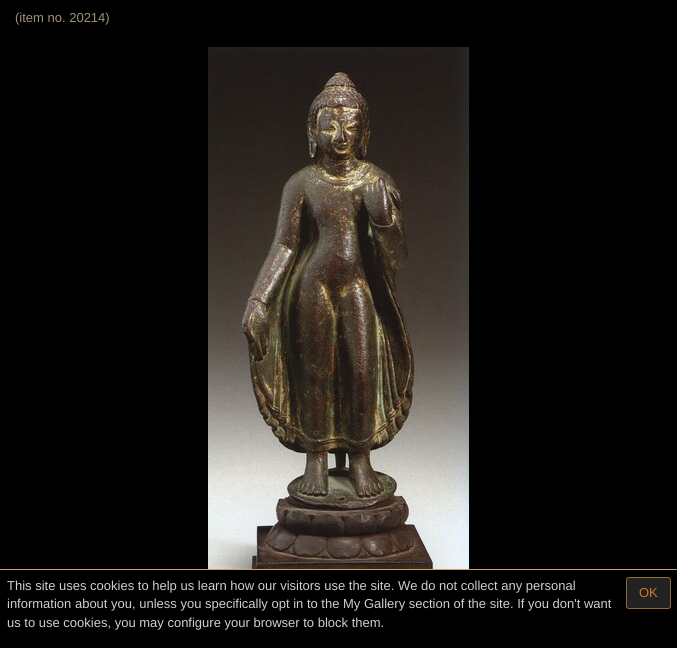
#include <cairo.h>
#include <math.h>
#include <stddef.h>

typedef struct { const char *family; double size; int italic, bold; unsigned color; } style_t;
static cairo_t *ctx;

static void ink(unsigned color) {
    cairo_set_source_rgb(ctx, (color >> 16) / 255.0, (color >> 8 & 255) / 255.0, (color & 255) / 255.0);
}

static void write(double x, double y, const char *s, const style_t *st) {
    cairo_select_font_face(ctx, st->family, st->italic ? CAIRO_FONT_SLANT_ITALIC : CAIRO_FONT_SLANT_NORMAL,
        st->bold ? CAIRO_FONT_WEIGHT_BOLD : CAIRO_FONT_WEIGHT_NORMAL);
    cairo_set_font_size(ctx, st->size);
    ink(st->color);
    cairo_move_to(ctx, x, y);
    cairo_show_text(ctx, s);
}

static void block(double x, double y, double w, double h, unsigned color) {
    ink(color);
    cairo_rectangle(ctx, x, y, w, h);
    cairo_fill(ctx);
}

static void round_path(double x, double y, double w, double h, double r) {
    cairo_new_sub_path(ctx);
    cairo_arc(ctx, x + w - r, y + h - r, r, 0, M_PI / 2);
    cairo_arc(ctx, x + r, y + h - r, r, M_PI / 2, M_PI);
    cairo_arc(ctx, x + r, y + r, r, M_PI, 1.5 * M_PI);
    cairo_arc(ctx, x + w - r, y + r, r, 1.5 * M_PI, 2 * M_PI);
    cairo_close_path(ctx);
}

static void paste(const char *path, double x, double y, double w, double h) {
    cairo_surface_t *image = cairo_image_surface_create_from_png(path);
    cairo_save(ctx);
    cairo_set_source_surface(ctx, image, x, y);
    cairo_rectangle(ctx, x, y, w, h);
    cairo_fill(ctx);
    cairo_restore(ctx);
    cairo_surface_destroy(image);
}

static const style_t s1 = {"Liberation Sans", 13, 0, 0, 0x9f927a};
static const style_t s2 = {"Liberation Sans", 13, 0, 0, 0xcfcfcf};
static const style_t s3 = {"Liberation Sans", 13, 0, 0, 0xcc792a};

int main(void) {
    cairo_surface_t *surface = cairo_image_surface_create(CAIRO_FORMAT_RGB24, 677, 648);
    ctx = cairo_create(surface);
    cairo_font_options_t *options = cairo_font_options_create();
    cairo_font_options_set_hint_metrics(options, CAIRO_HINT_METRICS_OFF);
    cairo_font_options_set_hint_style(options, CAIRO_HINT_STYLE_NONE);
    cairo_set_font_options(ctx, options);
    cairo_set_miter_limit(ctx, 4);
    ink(0x000000);
    cairo_paint(ctx);
    write(15, 22, "(item no. 20214)", &s1);
    paste("pic1.png", 208, 47, 261, 522);
    block(0, 569, 677, 1, 0xcca351);
    write(7, 590, "This site uses cookies to help us learn how our visitors use the site. We do not collect any personal", &s2);
    write(7, 608, "information about you, unless you specifically opt in to the My Gallery section of the site. If you don't want", &s2);
    write(7, 627, "us to use cookies, you may configure your browser to block them.", &s2);
    ink(0x222222);
    round_path(626.5, 577.5, 44, 31, 2.5);
    cairo_fill_preserve(ctx);
    ink(0x8e6c29);
    cairo_set_line_width(ctx, 1);
    cairo_stroke(ctx);
    write(639, 597, "OK", &s3);
    cairo_surface_write_to_png(surface, "screenshot.png");
    cairo_font_options_destroy(options);
    cairo_destroy(ctx);
    cairo_surface_destroy(surface);
    return 0;
}
